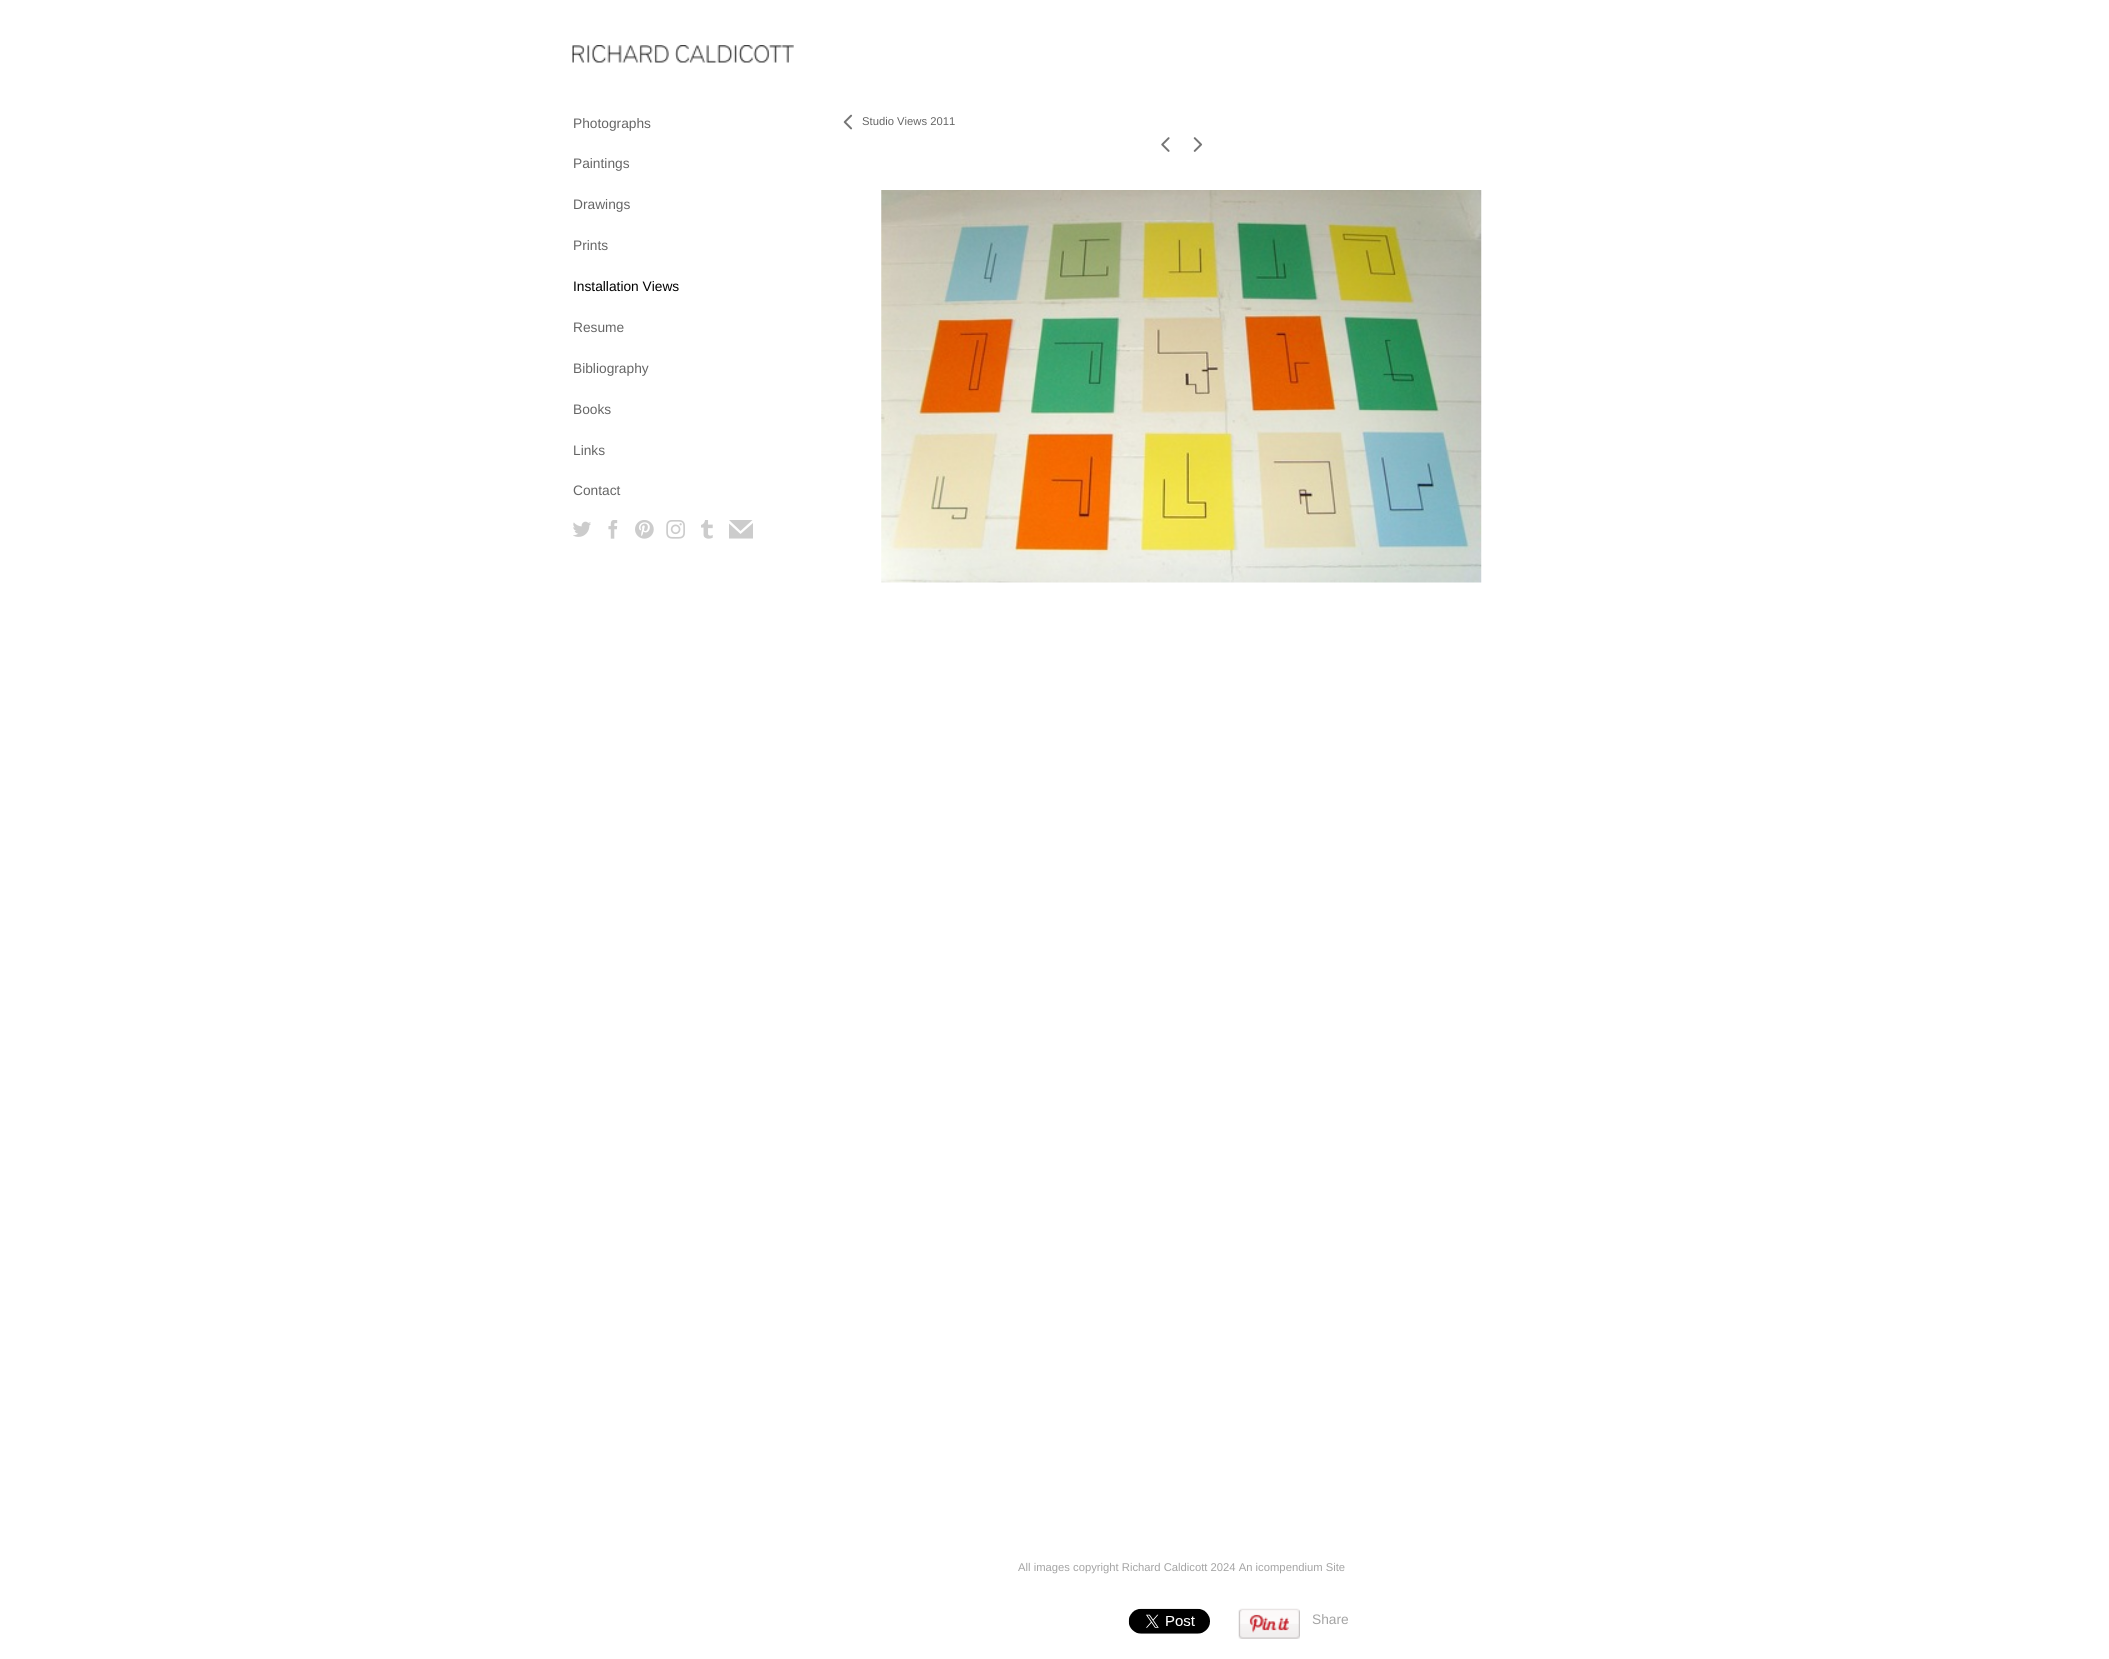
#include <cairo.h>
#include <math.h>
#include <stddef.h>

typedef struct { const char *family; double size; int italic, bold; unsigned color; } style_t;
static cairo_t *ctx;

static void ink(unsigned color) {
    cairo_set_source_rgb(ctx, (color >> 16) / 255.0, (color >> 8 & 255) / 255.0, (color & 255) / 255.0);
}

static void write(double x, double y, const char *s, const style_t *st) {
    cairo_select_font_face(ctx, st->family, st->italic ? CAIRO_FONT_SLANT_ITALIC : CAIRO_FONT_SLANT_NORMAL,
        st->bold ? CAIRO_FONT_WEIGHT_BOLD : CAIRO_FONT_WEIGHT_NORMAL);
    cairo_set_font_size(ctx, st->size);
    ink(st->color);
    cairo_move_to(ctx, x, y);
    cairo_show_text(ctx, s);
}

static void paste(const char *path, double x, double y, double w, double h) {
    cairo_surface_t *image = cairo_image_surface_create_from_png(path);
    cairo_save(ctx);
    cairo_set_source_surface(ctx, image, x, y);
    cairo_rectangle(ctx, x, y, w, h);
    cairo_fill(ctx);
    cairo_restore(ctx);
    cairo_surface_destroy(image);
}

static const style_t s1 = {"Liberation Sans", 13.75, 0, 0, 0x666666};
static const style_t s2 = {"Liberation Sans", 13.75, 0, 0, 0x000000};
static const style_t s3 = {"Liberation Sans", 11.25, 0, 0, 0x666666};
static const style_t s4 = {"Liberation Sans", 11.25, 0, 0, 0xa4a4a4};
static const style_t s5 = {"Liberation Sans", 13.75, 0, 0, 0xa4a4a4};

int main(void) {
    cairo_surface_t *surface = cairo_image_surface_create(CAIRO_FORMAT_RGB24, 2109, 1659);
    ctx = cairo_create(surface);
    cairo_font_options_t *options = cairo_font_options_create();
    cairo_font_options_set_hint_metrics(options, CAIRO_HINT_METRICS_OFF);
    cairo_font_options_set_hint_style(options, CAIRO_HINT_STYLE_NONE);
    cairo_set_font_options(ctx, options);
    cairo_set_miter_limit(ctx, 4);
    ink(0xffffff);
    cairo_paint(ctx);
    paste("pic1.png", 572, 45, 222, 18);
    write(573, 128, "Photographs", &s1);
    write(573, 168, "Paintings", &s1);
    write(573, 209, "Drawings", &s1);
    write(573, 250, "Prints", &s1);
    write(573, 291, "Installation Views", &s2);
    write(573, 332, "Resume", &s1);
    write(573, 373, "Bibliography", &s1);
    write(573, 414, "Books", &s1);
    write(573, 455, "Links", &s1);
    write(573, 495, "Contact", &s1);
    paste("pic2.png", 573, 521, 18, 16);
    paste("pic3.png", 608, 520, 10, 19);
    paste("pic4.png", 635, 520, 19, 19);
    paste("pic5.png", 666, 520, 19, 19);
    paste("pic6.png", 701, 520, 12, 19);
    ink(0xcccccc);
    cairo_new_path(ctx);
    cairo_move_to(ctx, 752.5, 520);
    cairo_line_to(ctx, 729, 520);
    cairo_line_to(ctx, 740.5, 531);
    cairo_close_path(ctx);
    cairo_move_to(ctx, 740.5, 534);
    cairo_line_to(ctx, 729, 523.5);
    cairo_line_to(ctx, 729, 538.5);
    cairo_line_to(ctx, 753, 538.5);
    cairo_line_to(ctx, 753, 523);
    cairo_close_path(ctx);
    cairo_fill(ctx);
    paste("pic7.png", 843, 114, 10, 16);
    write(862, 125, "Studio Views 2011", &s3);
    paste("pic8.png", 1161, 137, 9, 15);
    paste("pic9.png", 1193, 137, 10, 15);
    paste("pic10.png", 881, 190, 601, 393);
    write(1018, 1571, "All images copyright Richard Caldicott 2024 An icompendium Site", &s4);
    paste("pic11.png", 1128, 1608, 82, 26);
    paste("pic12.png", 1238, 1608, 62, 31);
    write(1312, 1624, "Share", &s5);
    cairo_surface_write_to_png(surface, "screenshot.png");
    cairo_font_options_destroy(options);
    cairo_destroy(ctx);
    cairo_surface_destroy(surface);
    return 0;
}
